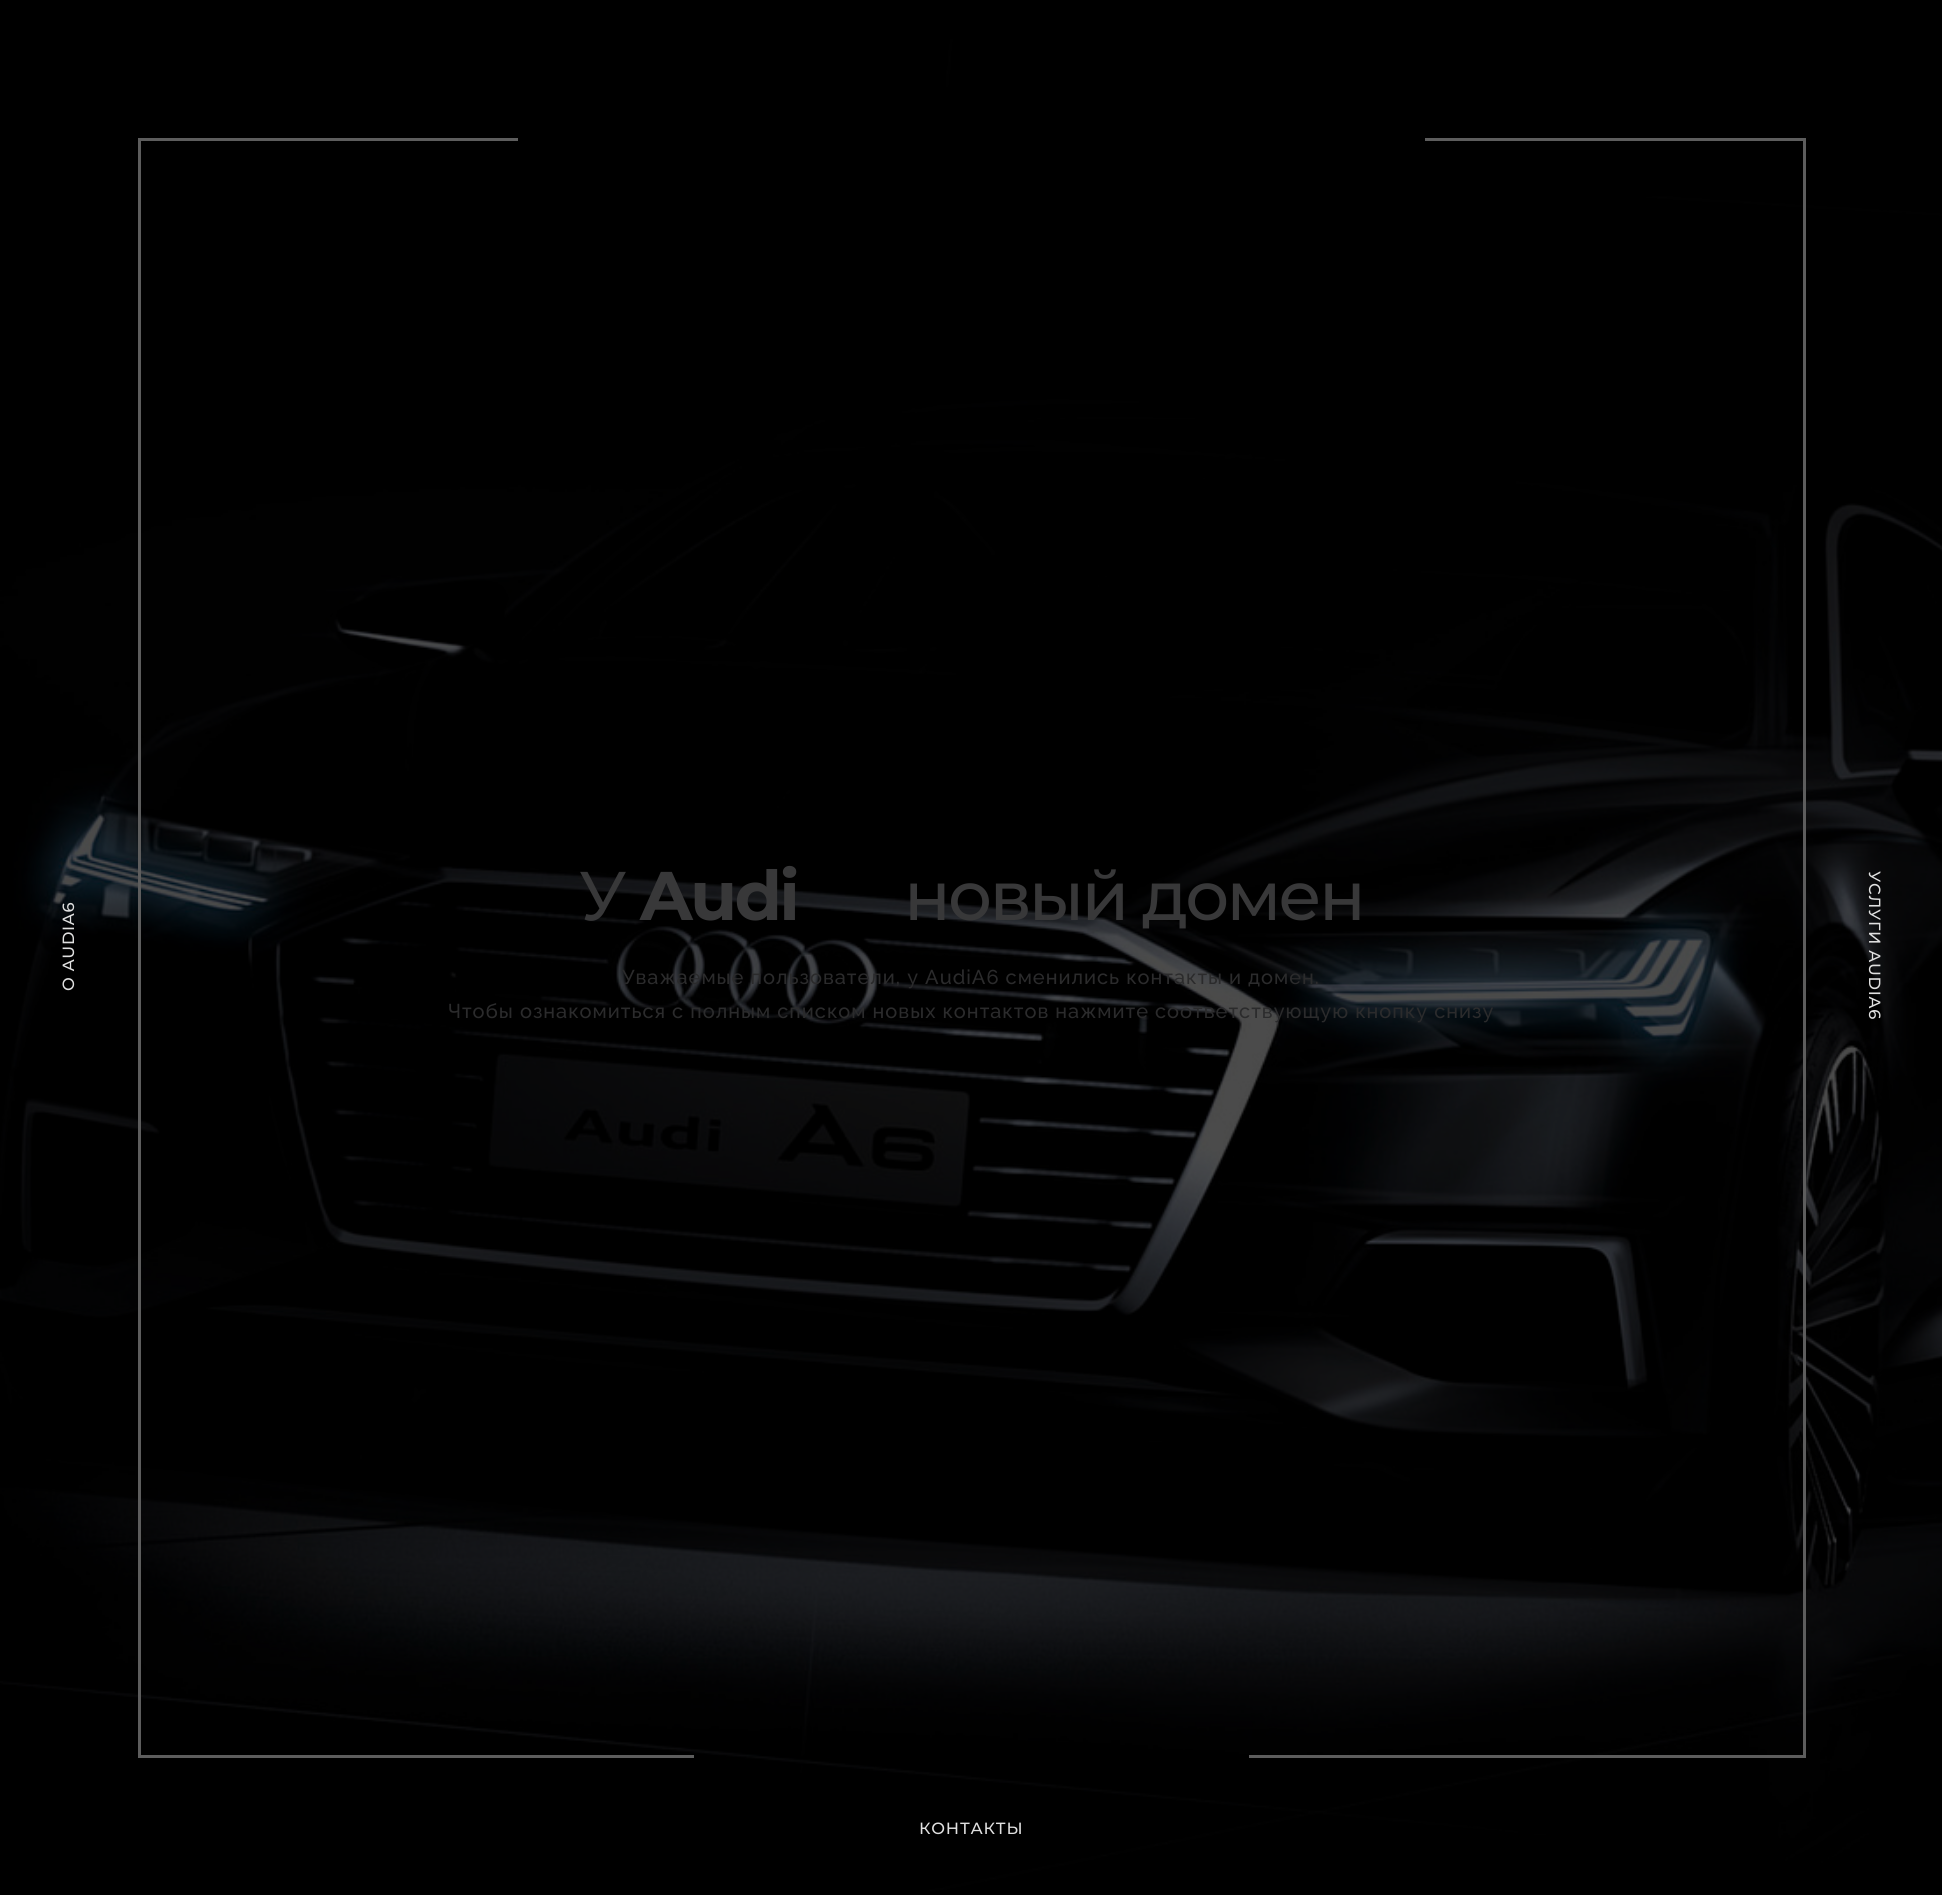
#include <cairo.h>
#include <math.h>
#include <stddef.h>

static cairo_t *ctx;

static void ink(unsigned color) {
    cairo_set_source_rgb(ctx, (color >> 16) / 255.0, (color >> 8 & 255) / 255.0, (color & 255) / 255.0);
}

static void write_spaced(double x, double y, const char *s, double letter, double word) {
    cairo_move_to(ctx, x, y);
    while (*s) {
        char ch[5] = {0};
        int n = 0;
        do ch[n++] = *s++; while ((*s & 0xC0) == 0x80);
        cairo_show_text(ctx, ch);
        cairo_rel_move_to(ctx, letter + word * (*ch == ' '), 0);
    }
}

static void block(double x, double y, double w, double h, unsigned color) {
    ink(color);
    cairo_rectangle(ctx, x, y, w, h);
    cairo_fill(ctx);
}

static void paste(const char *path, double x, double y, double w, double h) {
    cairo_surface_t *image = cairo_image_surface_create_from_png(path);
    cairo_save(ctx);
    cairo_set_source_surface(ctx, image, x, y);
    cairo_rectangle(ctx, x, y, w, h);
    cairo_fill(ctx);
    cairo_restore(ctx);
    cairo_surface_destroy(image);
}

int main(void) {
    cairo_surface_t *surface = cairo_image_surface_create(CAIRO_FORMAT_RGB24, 1942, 1895);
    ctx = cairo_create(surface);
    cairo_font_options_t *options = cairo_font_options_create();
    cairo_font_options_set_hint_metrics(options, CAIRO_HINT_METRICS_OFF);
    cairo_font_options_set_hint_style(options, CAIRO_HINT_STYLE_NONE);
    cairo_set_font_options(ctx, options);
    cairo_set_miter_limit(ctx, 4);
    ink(0x000000);
    cairo_paint(ctx);
    paste("pic1.png", 0, 39, 1942, 1856);
    block(138, 138, 380, 3, 0x5d5d5d);
    block(138, 1755, 556, 3, 0x5d5d5d);
    block(138, 138, 3, 1620, 0x5d5d5d);
    block(1425, 138, 380, 3, 0x5d5d5d);
    block(1249, 1755, 556, 3, 0x5d5d5d);
    block(1803, 138, 3, 1620, 0x5d5d5d);
    cairo_select_font_face(ctx, "Montserrat Medium", CAIRO_FONT_SLANT_NORMAL, CAIRO_FONT_WEIGHT_NORMAL);
    cairo_set_font_size(ctx, 68.75);
    ink(0x383839);
    write_spaced(579, 920, "У", -2.75, 0);
    cairo_select_font_face(ctx, "Montserrat", CAIRO_FONT_SLANT_NORMAL, CAIRO_FONT_WEIGHT_BOLD);
    write_spaced(640, 920, "Audi", -2.75, 0);
    cairo_select_font_face(ctx, "Montserrat Medium", CAIRO_FONT_SLANT_NORMAL, CAIRO_FONT_WEIGHT_NORMAL);
    write_spaced(904, 920, "новый домен", -2.75, 0);
    cairo_select_font_face(ctx, "Raleway Medium", CAIRO_FONT_SLANT_NORMAL, CAIRO_FONT_WEIGHT_NORMAL);
    cairo_set_font_size(ctx, 20);
    ink(0x2b2b2c);
    write_spaced(622, 984, "Уважаемые пользователи, у AudiA6 сменились контакты и домен.", 1, 0);
    write_spaced(448, 1018, "Чтобы ознакомиться с полным списком новых контактов нажмите соответствующую кнопку снизу", 1, 0);
    cairo_select_font_face(ctx, "Montserrat Medium", CAIRO_FONT_SLANT_NORMAL, CAIRO_FONT_WEIGHT_NORMAL);
    cairo_set_font_size(ctx, 16.25);
    ink(0xe0e0e0);
    cairo_save(ctx);
    cairo_translate(ctx, 74, 991);
    cairo_rotate(ctx, -90 * M_PI / 180);
    write_spaced(0, 0, "О AUDIA6", 0.75, 0);
    cairo_restore(ctx);
    cairo_save(ctx);
    cairo_translate(ctx, 1869, 871);
    cairo_rotate(ctx, 90 * M_PI / 180);
    write_spaced(0, 0, "УСЛУГИ AUDIA6", 0.75, 0);
    cairo_restore(ctx);
    write_spaced(919, 1834, "КОНТАКТЫ", 0.75, 0);
    cairo_surface_write_to_png(surface, "screenshot.png");
    cairo_font_options_destroy(options);
    cairo_destroy(ctx);
    cairo_surface_destroy(surface);
    return 0;
}
